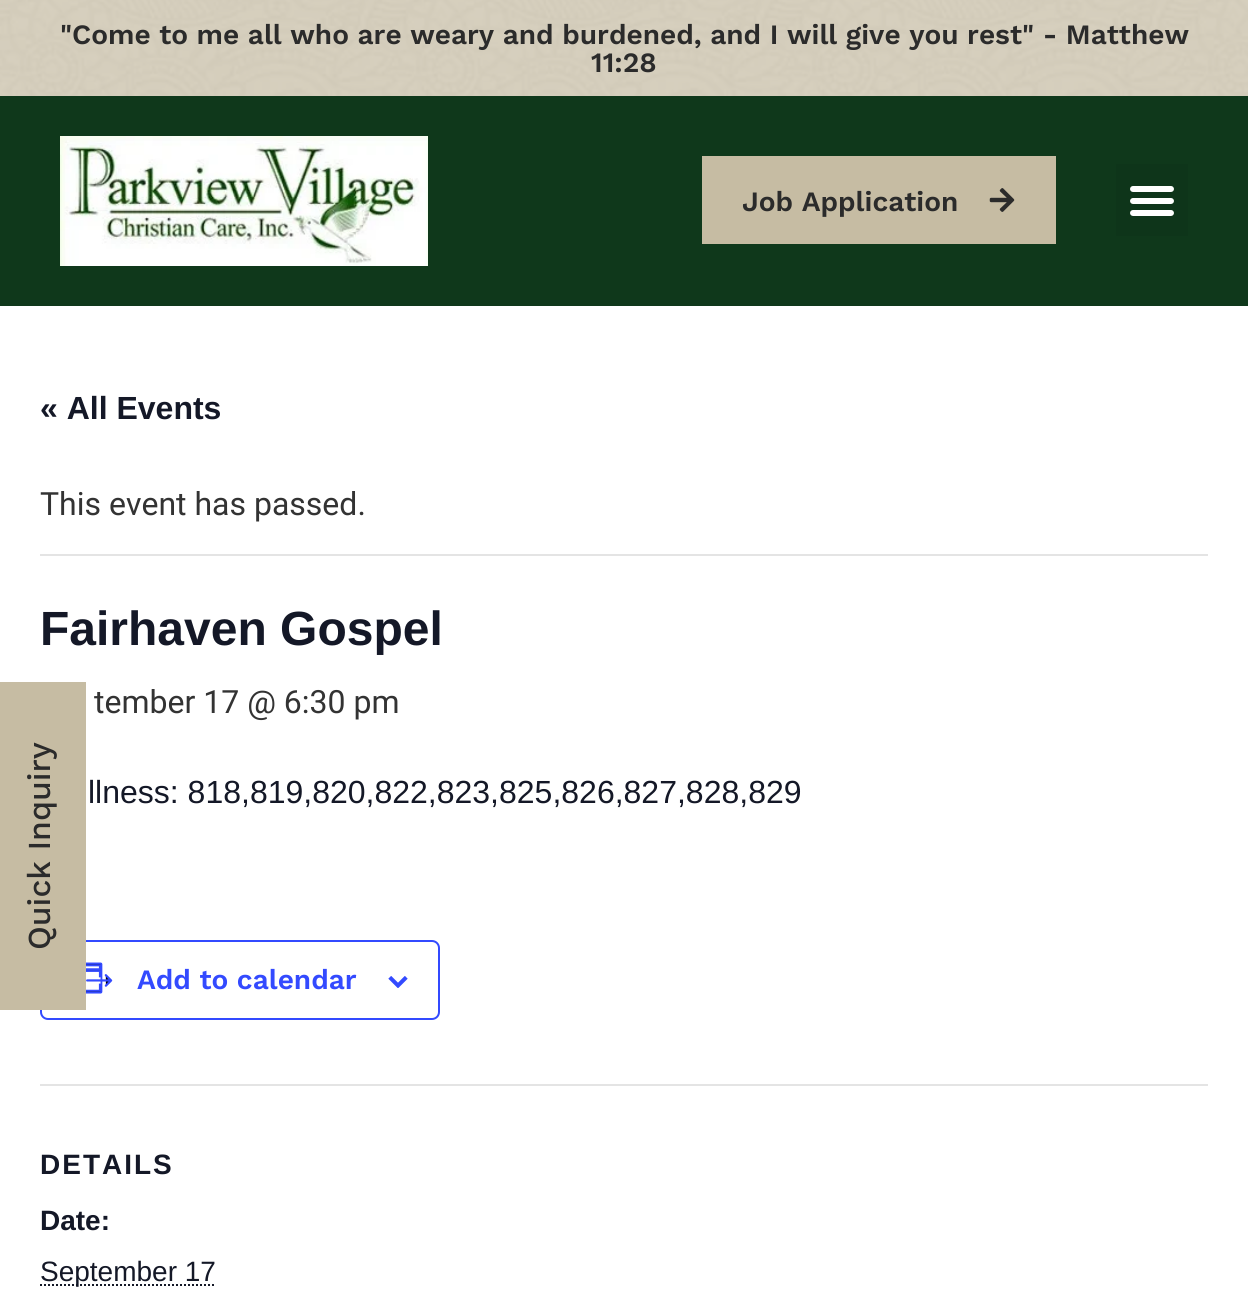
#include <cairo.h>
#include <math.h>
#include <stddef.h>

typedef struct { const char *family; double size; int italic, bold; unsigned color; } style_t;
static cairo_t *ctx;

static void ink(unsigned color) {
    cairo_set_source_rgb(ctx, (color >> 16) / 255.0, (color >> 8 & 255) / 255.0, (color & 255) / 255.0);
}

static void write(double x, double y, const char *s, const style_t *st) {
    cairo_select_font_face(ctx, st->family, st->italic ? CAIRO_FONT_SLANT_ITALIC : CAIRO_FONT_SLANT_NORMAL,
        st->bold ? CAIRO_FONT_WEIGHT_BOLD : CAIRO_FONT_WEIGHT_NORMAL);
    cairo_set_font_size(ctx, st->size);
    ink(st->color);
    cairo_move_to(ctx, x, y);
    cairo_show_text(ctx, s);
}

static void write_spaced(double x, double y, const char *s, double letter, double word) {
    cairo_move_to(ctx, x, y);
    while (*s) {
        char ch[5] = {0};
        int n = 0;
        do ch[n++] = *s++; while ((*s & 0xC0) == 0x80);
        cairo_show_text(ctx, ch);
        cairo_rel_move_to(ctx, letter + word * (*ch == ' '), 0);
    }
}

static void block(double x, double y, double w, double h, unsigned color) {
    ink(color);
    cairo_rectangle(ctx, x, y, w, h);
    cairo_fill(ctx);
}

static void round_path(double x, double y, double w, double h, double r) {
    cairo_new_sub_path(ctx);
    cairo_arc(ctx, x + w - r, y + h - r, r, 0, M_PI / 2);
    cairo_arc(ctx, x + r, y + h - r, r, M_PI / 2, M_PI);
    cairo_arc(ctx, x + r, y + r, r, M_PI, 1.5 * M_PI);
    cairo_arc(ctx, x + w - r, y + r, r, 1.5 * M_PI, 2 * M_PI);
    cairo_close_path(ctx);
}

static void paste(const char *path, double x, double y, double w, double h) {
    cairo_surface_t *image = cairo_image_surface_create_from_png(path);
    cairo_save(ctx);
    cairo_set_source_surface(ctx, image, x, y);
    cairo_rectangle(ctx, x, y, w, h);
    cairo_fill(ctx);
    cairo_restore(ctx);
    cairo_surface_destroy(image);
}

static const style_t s1 = {"Work Sans SemiBold", 28, 0, 0, 0x2b2b2b};
static const style_t s2 = {"Work Sans Medium", 32, 0, 0, 0x2b2b2b};
static const style_t s3 = {"Liberation Sans", 32, 0, 1, 0x141827};
static const style_t s4 = {"Roboto", 32, 0, 0, 0x333333};
static const style_t s5 = {"Liberation Sans", 48, 0, 1, 0x141827};
static const style_t s6 = {"Liberation Sans", 32, 0, 0, 0x141827};
static const style_t s7 = {"Work Sans SemiBold", 28, 0, 0, 0x334aff};
static const style_t s8 = {"Liberation Sans", 28, 0, 1, 0x141827};
static const style_t s9 = {"Liberation Sans", 28, 0, 0, 0x141827};

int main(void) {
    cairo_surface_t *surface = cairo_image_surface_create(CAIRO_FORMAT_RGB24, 1248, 1292);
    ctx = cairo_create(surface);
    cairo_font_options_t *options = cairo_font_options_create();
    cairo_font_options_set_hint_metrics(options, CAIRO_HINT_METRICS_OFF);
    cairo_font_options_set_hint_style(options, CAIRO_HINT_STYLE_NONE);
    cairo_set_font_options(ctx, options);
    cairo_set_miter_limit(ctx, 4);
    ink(0xffffff);
    cairo_paint(ctx);
    paste("pic1.png", 0, 0, 1248, 96);
    write(60, 44, "\"Come to me all who are weary and burdened, and I will give you rest\" - Matthew", &s1);
    write(591, 72, "11:28", &s1);
    block(0, 96, 1248, 210, 0x0f381b);
    paste("pic2.png", 60, 136, 368, 130);
    block(702, 156, 354, 88, 0xc6bca3);
    write(742, 211, "Job Application", &s1);
    paste("pic3.png", 989, 188, 26, 24);
    block(1116, 164, 72, 72, 0x0e351a);
    paste("pic4.png", 1130, 186, 44, 30);
    round_path(41, 941, 398, 78, 7);
    ink(0x334aff);
    cairo_stroke(ctx);
    block(0, 682, 86, 328, 0xc6bca3);
    cairo_save(ctx);
    cairo_translate(ctx, 50, 950);
    cairo_rotate(ctx, -90 * M_PI / 180);
    write(0, 0, "Quick Inquiry", &s2);
    cairo_restore(ctx);
    write(40, 419, "« All Events", &s3);
    block(40, 554, 1168, 2, 0xe4e4e4);
    write(40, 515, "This event has passed.", &s4);
    write(40, 645, "Fairhaven Gospel", &s5);
    write(94, 713, "tember 17 @ 6:30 pm", &s4);
    write(88, 803, "llness: 818,819,820,822,823,825,826,827,828,829", &s6);
    paste("pic5.png", 86, 962, 27, 32);
    write(137, 989, "Add to calendar", &s7);
    paste("pic6.png", 388, 976, 20, 12);
    block(40, 1084, 1168, 2, 0xe4e4e4);
    cairo_select_font_face(ctx, "Liberation Sans", CAIRO_FONT_SLANT_NORMAL, CAIRO_FONT_WEIGHT_BOLD);
    ink(0x141827);
    write_spaced(40, 1174, "DETAILS", 2, 0);
    write(40, 1230, "Date:", &s8);
    cairo_new_path(ctx);
    cairo_move_to(ctx, 40, 1285);
    cairo_line_to(ctx, 216, 1285);
    cairo_set_dash(ctx, (double[]){2, 2}, 2, 0);
    cairo_stroke(ctx);
    write(40, 1281, "September 17", &s9);
    cairo_surface_write_to_png(surface, "screenshot.png");
    cairo_font_options_destroy(options);
    cairo_destroy(ctx);
    cairo_surface_destroy(surface);
    return 0;
}
